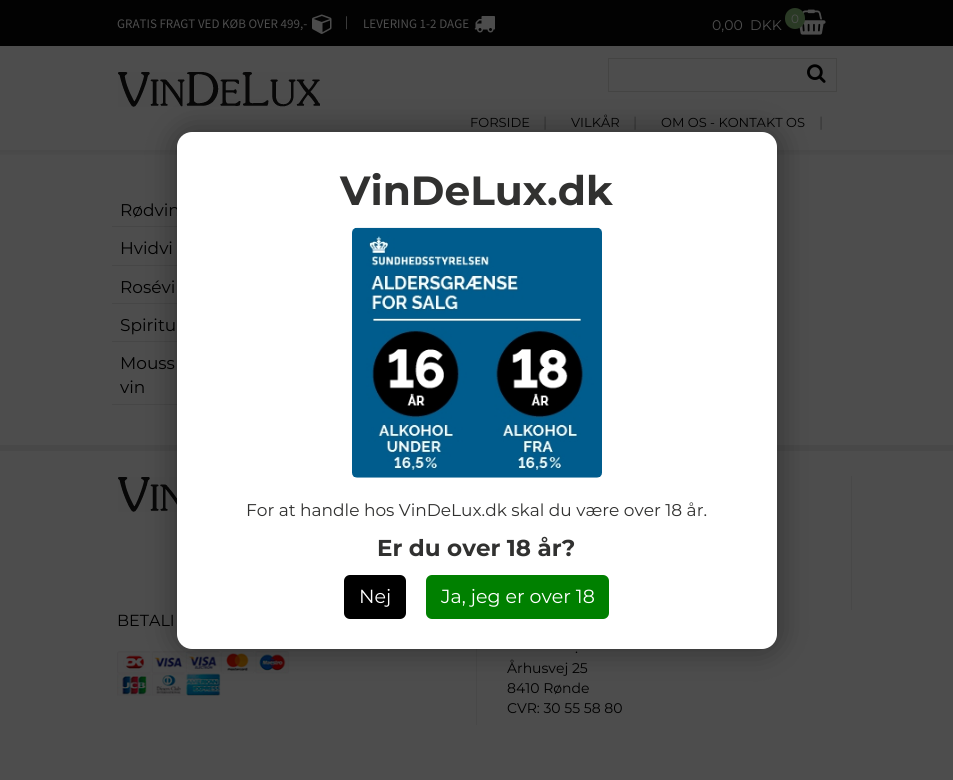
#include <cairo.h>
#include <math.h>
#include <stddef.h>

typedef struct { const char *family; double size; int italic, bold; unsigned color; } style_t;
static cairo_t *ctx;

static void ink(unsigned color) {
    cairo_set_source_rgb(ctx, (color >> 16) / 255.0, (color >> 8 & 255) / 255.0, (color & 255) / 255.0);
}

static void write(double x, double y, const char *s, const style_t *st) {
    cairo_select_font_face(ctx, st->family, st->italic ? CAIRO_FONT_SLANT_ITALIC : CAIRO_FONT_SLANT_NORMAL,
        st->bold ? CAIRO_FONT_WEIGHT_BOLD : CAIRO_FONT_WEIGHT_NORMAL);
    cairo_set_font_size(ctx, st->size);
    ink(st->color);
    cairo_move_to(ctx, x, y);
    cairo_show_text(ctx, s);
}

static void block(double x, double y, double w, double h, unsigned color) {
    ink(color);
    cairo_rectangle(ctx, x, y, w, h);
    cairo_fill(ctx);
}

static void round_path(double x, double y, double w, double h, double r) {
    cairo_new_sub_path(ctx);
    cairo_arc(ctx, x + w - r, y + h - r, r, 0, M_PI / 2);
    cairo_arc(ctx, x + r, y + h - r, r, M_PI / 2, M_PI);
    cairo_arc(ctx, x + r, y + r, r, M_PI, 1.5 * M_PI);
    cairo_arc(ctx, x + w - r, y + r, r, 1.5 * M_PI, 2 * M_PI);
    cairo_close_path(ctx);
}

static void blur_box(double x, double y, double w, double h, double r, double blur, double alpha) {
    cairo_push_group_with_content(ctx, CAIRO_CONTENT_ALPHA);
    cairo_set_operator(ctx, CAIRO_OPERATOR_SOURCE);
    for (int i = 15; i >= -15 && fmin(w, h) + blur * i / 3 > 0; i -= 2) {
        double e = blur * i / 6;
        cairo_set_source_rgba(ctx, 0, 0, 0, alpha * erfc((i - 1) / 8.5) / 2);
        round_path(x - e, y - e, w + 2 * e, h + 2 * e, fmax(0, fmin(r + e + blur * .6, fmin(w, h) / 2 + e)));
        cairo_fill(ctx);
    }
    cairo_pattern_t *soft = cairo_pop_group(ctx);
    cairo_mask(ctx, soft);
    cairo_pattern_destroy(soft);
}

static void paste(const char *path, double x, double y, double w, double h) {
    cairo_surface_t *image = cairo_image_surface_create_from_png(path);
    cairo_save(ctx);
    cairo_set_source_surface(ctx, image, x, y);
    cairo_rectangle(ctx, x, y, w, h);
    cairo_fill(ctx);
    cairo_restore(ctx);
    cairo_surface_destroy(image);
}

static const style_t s1 = {"Source Sans Pro", 13, 0, 0, 0x4d4d4d};
static const style_t s2 = {"Montserrat", 12, 0, 0, 0x4d4d4d};
static const style_t s3 = {"Montserrat", 14, 0, 0, 0x4d4d4d};
static const style_t s4 = {"Montserrat", 13, 0, 0, 0x000000};
static const style_t s5 = {"Montserrat", 14, 0, 0, 0x313130};
static const style_t s6 = {"Montserrat", 17, 0, 0, 0x000000};
static const style_t s7 = {"Montserrat", 40.75, 0, 1, 0x313130};
static const style_t s8 = {"Montserrat", 17, 0, 0, 0x313130};
static const style_t s9 = {"Montserrat", 23, 0, 1, 0x313130};
static const style_t s10 = {"Montserrat", 19, 0, 0, 0xffffff};
static const style_t s11 = {"Montserrat", 16, 0, 0, 0x000000};
static const style_t s12 = {"Montserrat", 14, 0, 0, 0x000000};

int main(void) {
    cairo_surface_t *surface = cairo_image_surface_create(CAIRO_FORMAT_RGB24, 953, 780);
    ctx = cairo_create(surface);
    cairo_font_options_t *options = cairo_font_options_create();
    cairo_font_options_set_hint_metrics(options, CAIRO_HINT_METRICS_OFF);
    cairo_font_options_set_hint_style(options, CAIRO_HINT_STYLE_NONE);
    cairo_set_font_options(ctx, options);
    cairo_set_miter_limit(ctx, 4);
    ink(0x4d4d4d);
    cairo_paint(ctx);
    block(0, 0, 953, 46, 0x020202);
    write(117, 28, "GRATIS FRAGT VED KØB OVER 499,-", &s1);
    paste("pic1.png", 312, 14, 20, 20);
    write(345, 26, "|", &s1);
    write(363, 28, "LEVERING 1-2 DAGE", &s1);
    paste("pic2.png", 474, 16, 21, 17);
    paste("pic3.png", 799, 9, 27, 26);
    ink(0x2a3a25);
    round_path(785, 8, 20, 21, 10);
    cairo_fill(ctx);
    write(791, 23, "0", &s2);
    write(712, 30, "0,00  DKK", &s3);
    paste("pic4.png", 0, 150, 953, 5);
    paste("pic5.png", 118, 72, 202, 35);
    cairo_rectangle(ctx, 608.5, 58.5, 228, 33);
    ink(0x444443);
    cairo_set_line_width(ctx, 1);
    cairo_stroke(ctx);
    paste("pic6.png", 807, 64, 19, 19);
    write(470, 127, "FORSIDE", &s4);
    write(543, 127, "|", &s5);
    write(571, 127, "VILKÅR", &s4);
    write(633, 127, "|", &s5);
    write(661, 127, "OM OS - KONTAKT OS", &s4);
    write(819, 127, "|", &s5);
    block(112, 226, 65, 1, 0x464646);
    write(120, 216, "Rødvin", &s6);
    block(112, 265, 65, 1, 0x464646);
    write(120, 254, "Hvidvi", &s6);
    block(112, 303, 65, 1, 0x464646);
    write(120, 293, "Rosévi", &s6);
    block(112, 341, 65, 1, 0x464646);
    write(120, 331, "Spiritu", &s6);
    block(112, 404, 65, 1, 0x464646);
    write(120, 369, "Mouss", &s6);
    write(120, 393, "vin", &s6);
    block(0, 445, 953, 6, 0x484848);
    paste("pic8.png", 118, 477, 59, 35);
    block(476, 649, 1, 76, 0x484848);
    paste("pic9.png", 117, 651, 172, 45);
    ink(0x000000);
    blur_box(177, 132, 600, 517, 15, 15, 0.4);
    ink(0xffffff);
    round_path(177, 132, 600, 517, 15);
    cairo_fill(ctx);
    write(340, 205, "VinDeLux.dk", &s7);
    paste("pic7.png", 352, 227, 250, 251);
    write(246, 516, "For at handle hos VinDeLux.dk skal du være over 18 år.", &s8);
    write(377, 556, "Er du over 18 år?", &s9);
    ink(0x000000);
    round_path(344, 575, 62, 44, 6);
    cairo_fill(ctx);
    write(359, 603, "Nej", &s10);
    ink(0x008000);
    round_path(426, 575, 183, 44, 6);
    cairo_fill(ctx);
    write(441, 603, "Ja, jeg er over 18", &s10);
    block(851, 476, 1, 134, 0x484848);
    write(117, 626, "BETALI", &s11);
    write(575, 653, ".", &s12);
    write(507, 673, "Århusvej 25", &s12);
    write(507, 693, "8410 Rønde", &s12);
    write(507, 713, "CVR: 30 55 58 80", &s12);
    cairo_surface_write_to_png(surface, "screenshot.png");
    cairo_font_options_destroy(options);
    cairo_destroy(ctx);
    cairo_surface_destroy(surface);
    return 0;
}
